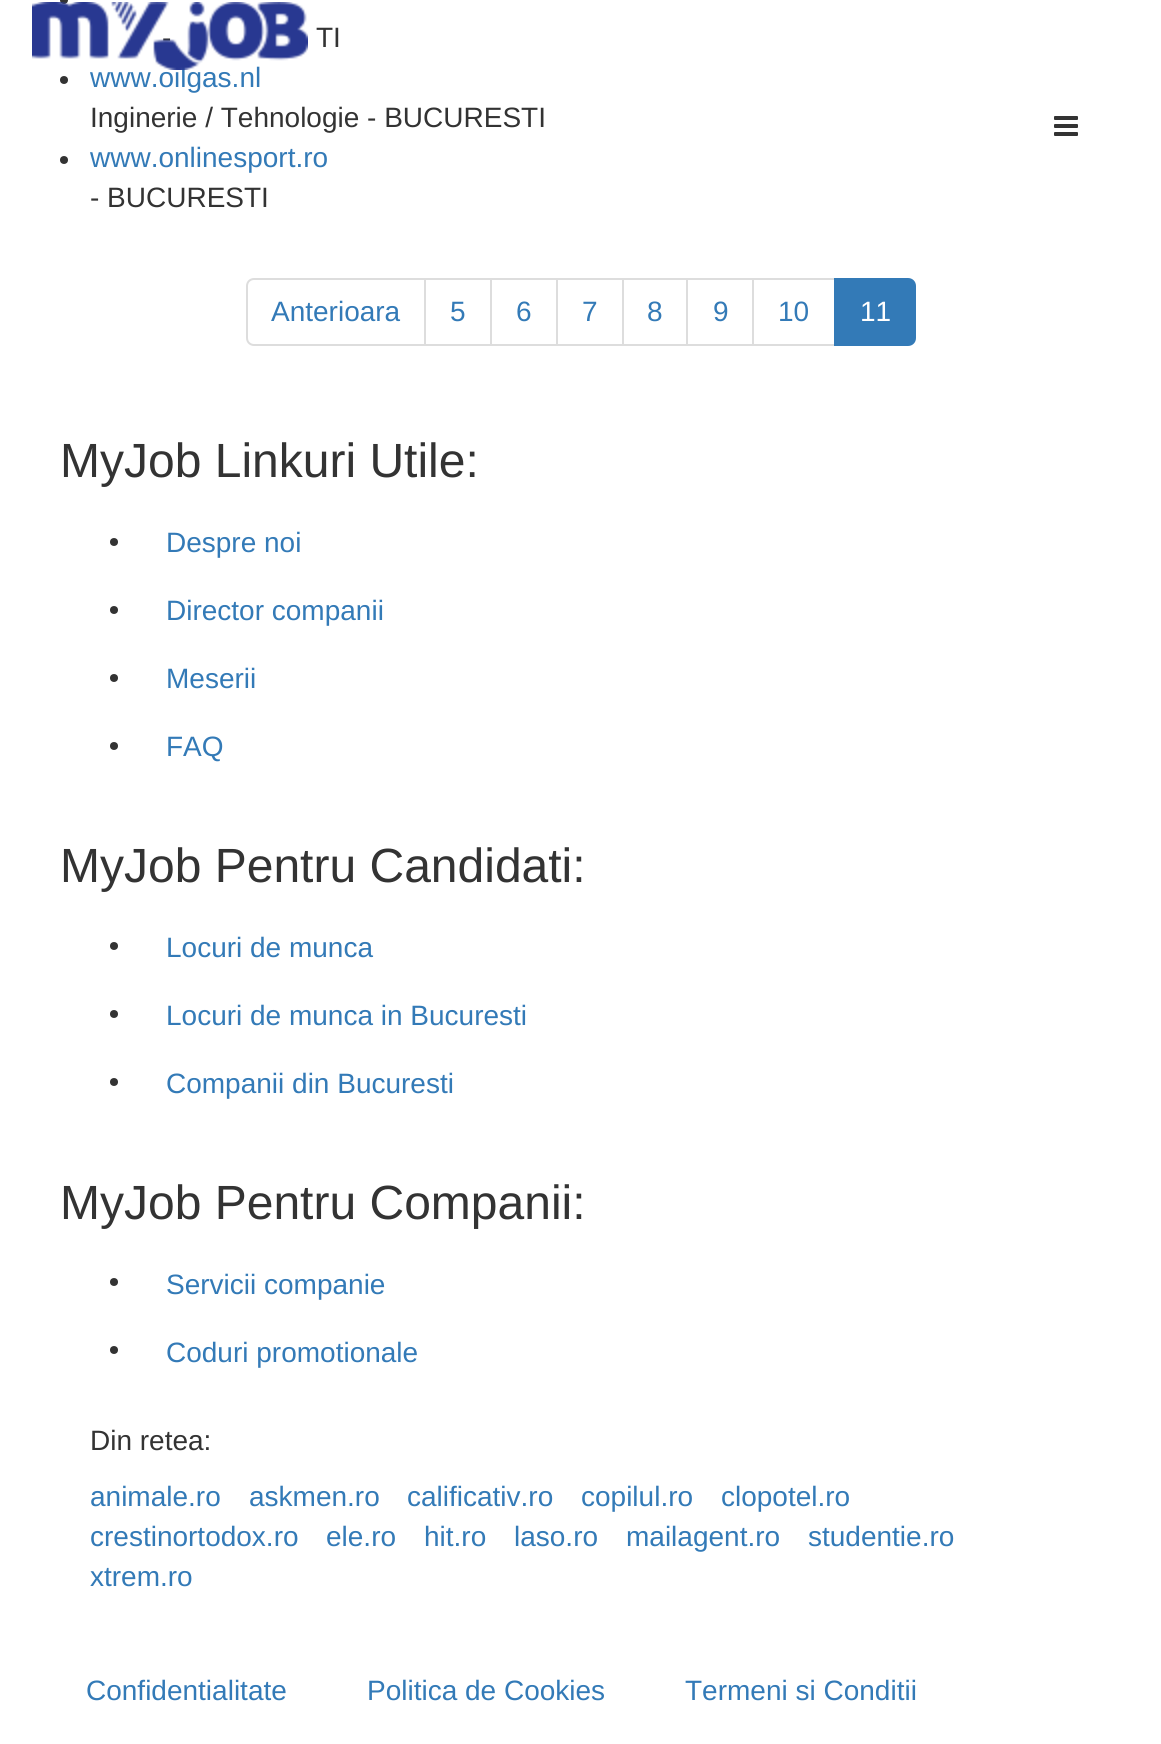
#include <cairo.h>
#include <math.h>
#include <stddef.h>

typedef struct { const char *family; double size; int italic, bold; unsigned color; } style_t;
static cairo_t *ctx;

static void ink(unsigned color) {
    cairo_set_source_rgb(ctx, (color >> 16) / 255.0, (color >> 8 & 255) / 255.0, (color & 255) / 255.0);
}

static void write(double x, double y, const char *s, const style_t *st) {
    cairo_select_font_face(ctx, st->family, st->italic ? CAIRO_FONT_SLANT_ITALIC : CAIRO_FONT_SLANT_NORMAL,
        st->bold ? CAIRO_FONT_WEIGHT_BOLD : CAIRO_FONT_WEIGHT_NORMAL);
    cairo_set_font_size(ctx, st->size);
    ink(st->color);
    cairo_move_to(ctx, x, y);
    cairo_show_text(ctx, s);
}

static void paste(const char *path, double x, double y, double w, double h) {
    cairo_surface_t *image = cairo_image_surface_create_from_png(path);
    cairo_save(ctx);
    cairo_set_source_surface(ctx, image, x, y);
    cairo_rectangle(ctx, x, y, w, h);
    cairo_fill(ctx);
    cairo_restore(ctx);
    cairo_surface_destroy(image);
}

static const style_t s1 = {"Liberation Sans", 28, 0, 0, 0x333333};
static const style_t s2 = {"Liberation Sans", 28, 0, 0, 0x337ab7};
static const style_t s3 = {"Liberation Sans", 28, 0, 0, 0xffffff};
static const style_t s4 = {"Liberation Sans", 48, 0, 0, 0x333333};

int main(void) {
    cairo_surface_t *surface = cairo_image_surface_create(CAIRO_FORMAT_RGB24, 1161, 1744);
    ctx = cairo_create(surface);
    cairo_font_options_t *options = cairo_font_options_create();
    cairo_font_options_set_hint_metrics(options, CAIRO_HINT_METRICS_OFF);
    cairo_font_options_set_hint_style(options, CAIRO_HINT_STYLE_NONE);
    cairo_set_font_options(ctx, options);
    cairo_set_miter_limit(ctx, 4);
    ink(0xffffff);
    cairo_paint(ctx);
    ink(0x333333);
    cairo_arc(ctx, 64, 0, 4, 0, 2 * M_PI);
    cairo_fill(ctx);
    write(162, 47, "-", &s1);
    write(90, 87, "www.oilgas.nl", &s2);
    paste("pic1.png", 32, 2, 276, 68);
    paste("pic2.png", 1054, 116, 24, 20);
    write(316, 47, "TI", &s1);
    cairo_new_path(ctx);
    cairo_arc(ctx, 64, 80, 4, 0, 2 * M_PI);
    cairo_fill(ctx);
    write(90, 127, "Inginerie / Tehnologie - BUCURESTI", &s1);
    cairo_new_path(ctx);
    cairo_arc(ctx, 64, 160, 4, 0, 2 * M_PI);
    cairo_fill(ctx);
    write(90, 167, "www.onlinesport.ro", &s2);
    write(90, 207, "- BUCURESTI", &s1);
    cairo_new_path(ctx);
    cairo_move_to(ctx, 254, 279);
    cairo_line_to(ctx, 425, 279);
    cairo_line_to(ctx, 425, 345);
    cairo_line_to(ctx, 254, 345);
    cairo_curve_to(ctx, 250, 345, 247, 342, 247, 338);
    cairo_line_to(ctx, 247, 286);
    cairo_curve_to(ctx, 247, 282, 250, 279, 254, 279);
    cairo_close_path(ctx);
    ink(0xdddddd);
    cairo_stroke(ctx);
    write(271, 321, "Anterioara", &s2);
    cairo_rectangle(ctx, 425, 279, 66, 66);
    ink(0xdddddd);
    cairo_stroke(ctx);
    write(450, 321, "5", &s2);
    cairo_rectangle(ctx, 491, 279, 66, 66);
    ink(0xdddddd);
    cairo_stroke(ctx);
    write(516, 321, "6", &s2);
    cairo_rectangle(ctx, 557, 279, 66, 66);
    ink(0xdddddd);
    cairo_stroke(ctx);
    write(582, 321, "7", &s2);
    cairo_rectangle(ctx, 623, 279, 64, 66);
    ink(0xdddddd);
    cairo_stroke(ctx);
    write(647, 321, "8", &s2);
    cairo_rectangle(ctx, 687, 279, 66, 66);
    ink(0xdddddd);
    cairo_stroke(ctx);
    write(713, 321, "9", &s2);
    cairo_rectangle(ctx, 753, 279, 82, 66);
    ink(0xdddddd);
    cairo_stroke(ctx);
    write(778, 321, "10", &s2);
    cairo_new_path(ctx);
    cairo_move_to(ctx, 835, 279);
    cairo_line_to(ctx, 908, 279);
    cairo_curve_to(ctx, 912, 279, 915, 282, 915, 286);
    cairo_line_to(ctx, 915, 338);
    cairo_curve_to(ctx, 915, 342, 912, 345, 908, 345);
    cairo_line_to(ctx, 835, 345);
    cairo_close_path(ctx);
    cairo_fill_preserve(ctx);
    cairo_stroke(ctx);
    write(860, 321, "11", &s3);
    write(60, 477, "MyJob Linkuri Utile:", &s4);
    cairo_new_path(ctx);
    cairo_arc(ctx, 114, 542, 4, 0, 2 * M_PI);
    cairo_fill(ctx);
    write(166, 552, "Despre noi", &s2);
    ink(0x333333);
    cairo_new_path(ctx);
    cairo_arc(ctx, 114, 610, 4, 0, 2 * M_PI);
    cairo_fill(ctx);
    write(166, 620, "Director companii", &s2);
    ink(0x333333);
    cairo_new_path(ctx);
    cairo_arc(ctx, 114, 678, 4, 0, 2 * M_PI);
    cairo_fill(ctx);
    write(166, 688, "Meserii", &s2);
    ink(0x333333);
    cairo_new_path(ctx);
    cairo_arc(ctx, 114, 746, 4, 0, 2 * M_PI);
    cairo_fill(ctx);
    write(166, 756, "FAQ", &s2);
    write(60, 882, "MyJob Pentru Candidati:", &s4);
    cairo_new_path(ctx);
    cairo_arc(ctx, 114, 946, 4, 0, 2 * M_PI);
    cairo_fill(ctx);
    write(166, 957, "Locuri de munca", &s2);
    ink(0x333333);
    cairo_new_path(ctx);
    cairo_arc(ctx, 114, 1014, 4, 0, 2 * M_PI);
    cairo_fill(ctx);
    write(166, 1025, "Locuri de munca in Bucuresti", &s2);
    ink(0x333333);
    cairo_new_path(ctx);
    cairo_arc(ctx, 114, 1082, 4, 0, 2 * M_PI);
    cairo_fill(ctx);
    write(166, 1093, "Companii din Bucuresti", &s2);
    write(60, 1219, "MyJob Pentru Companii:", &s4);
    cairo_new_path(ctx);
    cairo_arc(ctx, 114, 1282, 4, 0, 2 * M_PI);
    cairo_fill(ctx);
    write(166, 1294, "Servicii companie", &s2);
    ink(0x333333);
    cairo_new_path(ctx);
    cairo_arc(ctx, 114, 1350, 4, 0, 2 * M_PI);
    cairo_fill(ctx);
    write(166, 1362, "Coduri promotionale", &s2);
    write(90, 1450, "Din retea:", &s1);
    write(90, 1506, "animale.ro", &s2);
    write(249, 1506, "askmen.ro", &s2);
    write(407, 1506, "calificativ.ro", &s2);
    write(581, 1506, "copilul.ro", &s2);
    write(721, 1506, "clopotel.ro", &s2);
    write(90, 1546, "crestinortodox.ro", &s2);
    write(326, 1546, "ele.ro", &s2);
    write(424, 1546, "hit.ro", &s2);
    write(514, 1546, "laso.ro", &s2);
    write(626, 1546, "mailagent.ro", &s2);
    write(808, 1546, "studentie.ro", &s2);
    write(90, 1586, "xtrem.ro", &s2);
    write(86, 1700, "Confidentialitate", &s2);
    write(367, 1700, "Politica de Cookies", &s2);
    write(685, 1700, "Termeni si Conditii", &s2);
    cairo_surface_write_to_png(surface, "screenshot.png");
    cairo_font_options_destroy(options);
    cairo_destroy(ctx);
    cairo_surface_destroy(surface);
    return 0;
}
